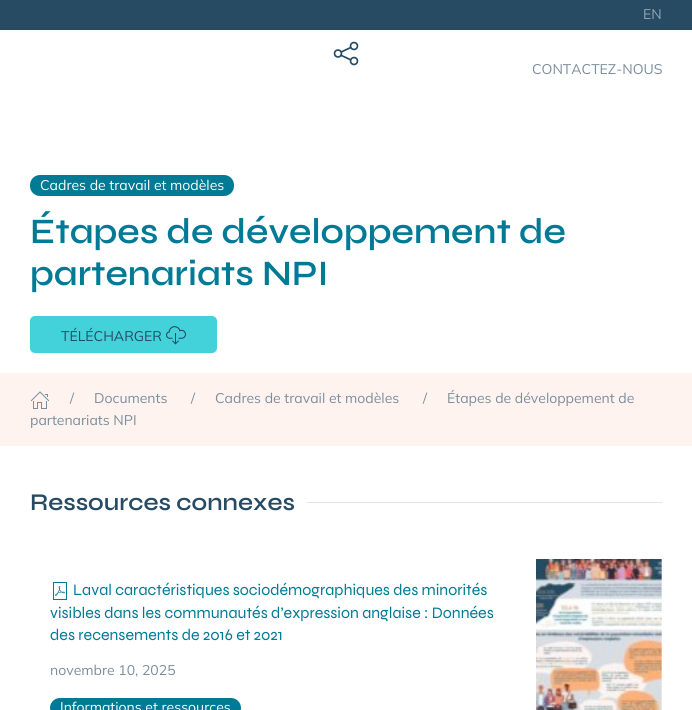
#include <cairo.h>
#include <math.h>
#include <stddef.h>

typedef struct { const char *family; double size; int italic, bold; unsigned color; } style_t;
static cairo_t *ctx;

static void ink(unsigned color) {
    cairo_set_source_rgb(ctx, (color >> 16) / 255.0, (color >> 8 & 255) / 255.0, (color & 255) / 255.0);
}

static void write(double x, double y, const char *s, const style_t *st) {
    cairo_select_font_face(ctx, st->family, st->italic ? CAIRO_FONT_SLANT_ITALIC : CAIRO_FONT_SLANT_NORMAL,
        st->bold ? CAIRO_FONT_WEIGHT_BOLD : CAIRO_FONT_WEIGHT_NORMAL);
    cairo_set_font_size(ctx, st->size);
    ink(st->color);
    cairo_move_to(ctx, x, y);
    cairo_show_text(ctx, s);
}

static void block(double x, double y, double w, double h, unsigned color) {
    ink(color);
    cairo_rectangle(ctx, x, y, w, h);
    cairo_fill(ctx);
}

static void round_path(double x, double y, double w, double h, double r) {
    cairo_new_sub_path(ctx);
    cairo_arc(ctx, x + w - r, y + h - r, r, 0, M_PI / 2);
    cairo_arc(ctx, x + r, y + h - r, r, M_PI / 2, M_PI);
    cairo_arc(ctx, x + r, y + r, r, M_PI, 1.5 * M_PI);
    cairo_arc(ctx, x + w - r, y + r, r, 1.5 * M_PI, 2 * M_PI);
    cairo_close_path(ctx);
}

static void paste(const char *path, double x, double y, double w, double h) {
    cairo_surface_t *image = cairo_image_surface_create_from_png(path);
    cairo_save(ctx);
    cairo_set_source_surface(ctx, image, x, y);
    cairo_rectangle(ctx, x, y, w, h);
    cairo_fill(ctx);
    cairo_restore(ctx);
    cairo_surface_destroy(image);
}

static const style_t s1 = {"Mulish", 14, 0, 0, 0x93a5b1};
static const style_t s2 = {"Mulish", 14, 0, 0, 0x7a8e9c};
static const style_t s3 = {"Mulish", 14, 0, 0, 0xffffff};
static const style_t s4 = {"Syne SemiBold", 35.75, 0, 0, 0x007a95};
static const style_t s5 = {"Mulish", 14, 0, 0, 0x264b63};
static const style_t s6 = {"Syne SemiBold", 24, 0, 0, 0x264b63};
static const style_t s7 = {"Syne", 16, 0, 0, 0x007a95};

int main(void) {
    cairo_surface_t *surface = cairo_image_surface_create(CAIRO_FORMAT_RGB24, 692, 710);
    ctx = cairo_create(surface);
    cairo_font_options_t *options = cairo_font_options_create();
    cairo_font_options_set_hint_metrics(options, CAIRO_HINT_METRICS_OFF);
    cairo_font_options_set_hint_style(options, CAIRO_HINT_STYLE_NONE);
    cairo_set_font_options(ctx, options);
    cairo_set_miter_limit(ctx, 4);
    ink(0xffffff);
    cairo_paint(ctx);
    block(0, 0, 692, 30, 0x264b63);
    write(643, 19, "EN", &s1);
    paste("pic1.png", 333, 41, 26, 25);
    write(532, 74, "CONTACTEZ-NOUS", &s2);
    ink(0x007a95);
    round_path(30, 175, 204, 21, 10);
    cairo_fill(ctx);
    write(40, 190, "Cadres de travail et modèles", &s3);
    write(30, 243, "Étapes de développement de", &s4);
    write(30, 285, "partenariats NPI", &s4);
    ink(0x43d1da);
    round_path(30, 316, 187, 37, 5);
    cairo_fill(ctx);
    write(61, 341, "TÉLÉCHARGER", &s5);
    paste("pic2.png", 166, 326, 20, 19);
    block(0, 373, 692, 73, 0xfff3ef);
    write(423, 403, "/", &s2);
    write(447, 403, "Étapes de développement de", &s2);
    write(30, 425, "partenariats NPI", &s2);
    paste("pic3.png", 30, 391, 20, 18);
    write(70, 403, "/", &s2);
    write(94, 403, "Documents", &s2);
    write(191, 403, "/", &s2);
    write(215, 403, "Cadres de travail et modèles", &s2);
    write(30, 510, "Ressources connexes", &s6);
    block(307, 502, 355, 1, 0xe1e5ea);
    paste("pic4.png", 53, 582, 14, 18);
    write(73, 595, "Laval caractéristiques sociodémographiques des minorités", &s7);
    write(50, 618, "visibles dans les communautés d’expression anglaise : Données", &s7);
    write(50, 640, "des recensements de 2016 et 2021", &s7);
    write(50, 675, "novembre 10, 2025", &s2);
    ink(0x007a95);
    round_path(50, 698, 191, 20, 10);
    cairo_fill(ctx);
    write(60, 712, "Informations et ressources", &s3);
    paste("pic5.png", 536, 559, 126, 151);
    cairo_surface_write_to_png(surface, "screenshot.png");
    cairo_font_options_destroy(options);
    cairo_destroy(ctx);
    cairo_surface_destroy(surface);
    return 0;
}
